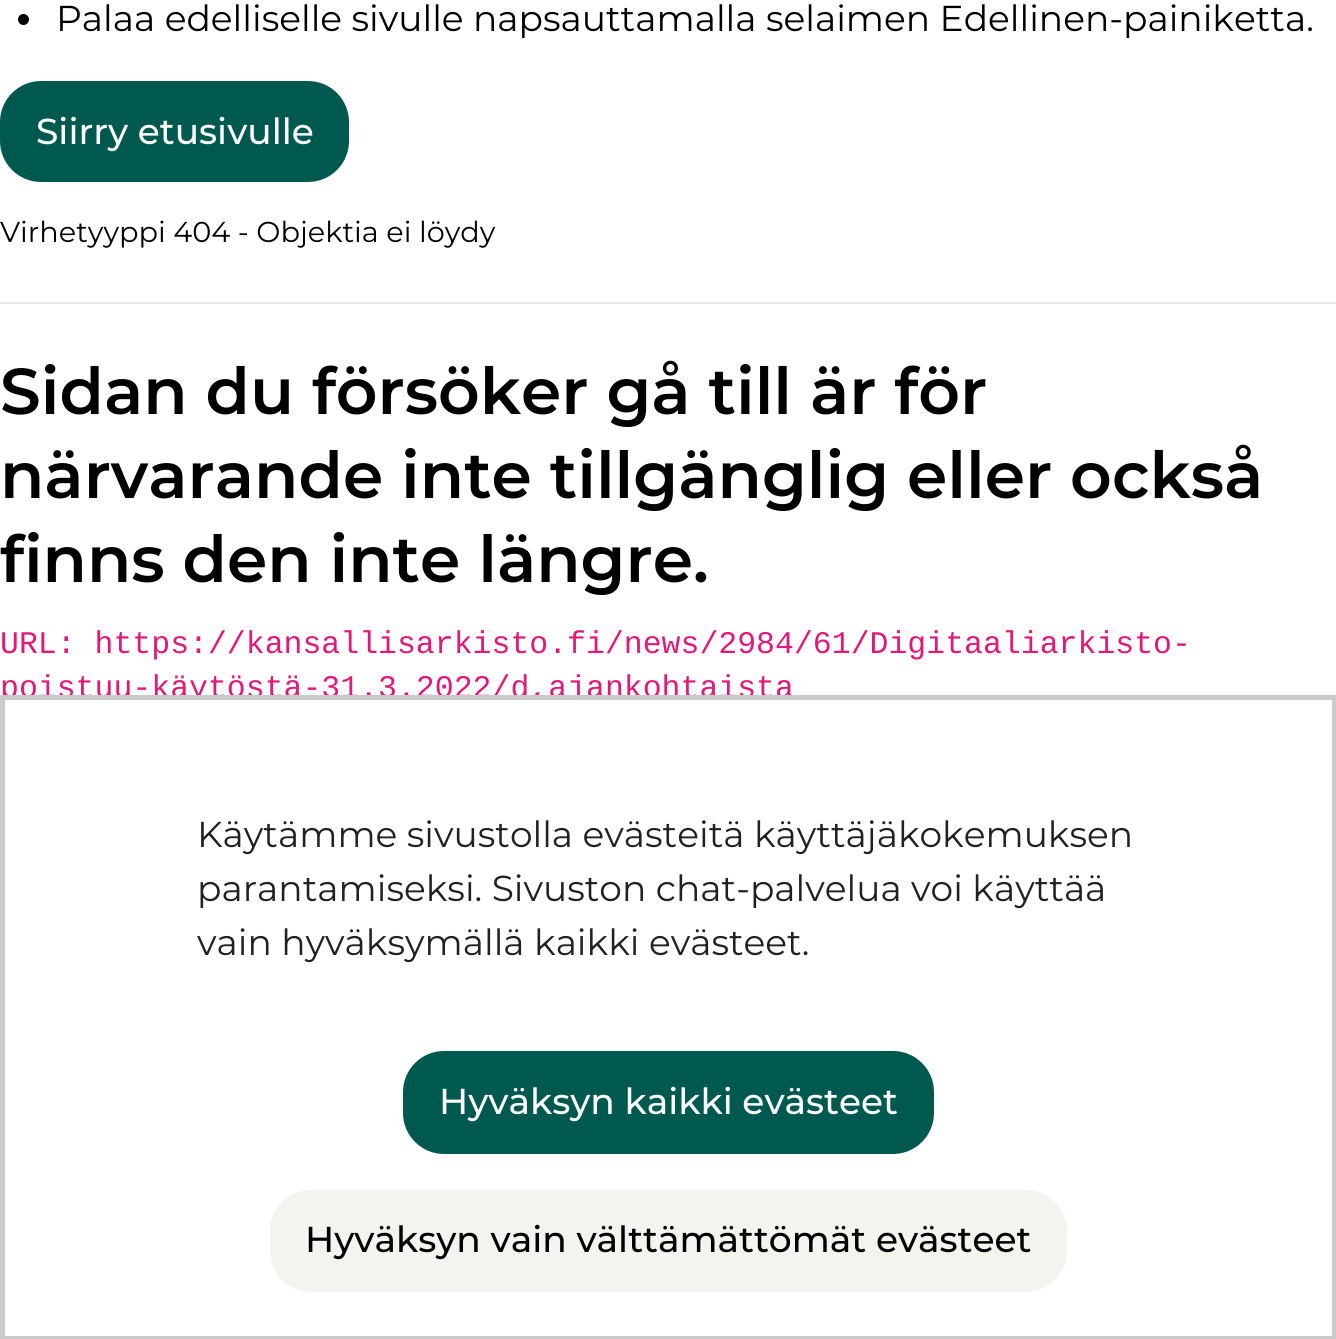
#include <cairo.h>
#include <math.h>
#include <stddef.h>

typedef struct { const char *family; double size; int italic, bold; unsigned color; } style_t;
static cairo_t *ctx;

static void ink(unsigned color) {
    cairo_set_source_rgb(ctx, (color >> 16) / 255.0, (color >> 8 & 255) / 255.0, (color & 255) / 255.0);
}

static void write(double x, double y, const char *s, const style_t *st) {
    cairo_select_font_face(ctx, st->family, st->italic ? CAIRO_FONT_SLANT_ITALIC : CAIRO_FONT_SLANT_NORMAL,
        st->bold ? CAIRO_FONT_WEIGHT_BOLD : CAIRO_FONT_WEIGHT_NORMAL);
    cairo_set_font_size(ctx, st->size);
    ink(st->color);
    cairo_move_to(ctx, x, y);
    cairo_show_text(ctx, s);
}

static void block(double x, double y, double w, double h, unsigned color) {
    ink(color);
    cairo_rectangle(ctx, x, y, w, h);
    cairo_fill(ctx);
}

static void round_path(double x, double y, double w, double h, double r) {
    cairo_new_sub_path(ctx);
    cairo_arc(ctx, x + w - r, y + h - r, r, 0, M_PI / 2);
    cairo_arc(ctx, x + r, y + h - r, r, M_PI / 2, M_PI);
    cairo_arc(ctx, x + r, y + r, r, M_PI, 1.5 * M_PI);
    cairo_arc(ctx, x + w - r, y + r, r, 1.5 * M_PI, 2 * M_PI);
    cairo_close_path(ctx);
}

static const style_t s1 = {"Montserrat", 36, 0, 0, 0x000000};
static const style_t s2 = {"Montserrat Medium", 36, 0, 0, 0xffffff};
static const style_t s3 = {"Montserrat", 28.75, 0, 0, 0x000000};
static const style_t s4 = {"Montserrat SemiBold", 64.75, 0, 0, 0x000000};
static const style_t s5 = {"Liberation Mono", 31.5, 0, 0, 0xe01a76};
static const style_t s6 = {"Montserrat", 36, 0, 0, 0x212121};
static const style_t s7 = {"Montserrat Medium", 36, 0, 0, 0x000000};

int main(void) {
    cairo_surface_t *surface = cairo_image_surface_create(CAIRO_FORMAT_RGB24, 1336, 1339);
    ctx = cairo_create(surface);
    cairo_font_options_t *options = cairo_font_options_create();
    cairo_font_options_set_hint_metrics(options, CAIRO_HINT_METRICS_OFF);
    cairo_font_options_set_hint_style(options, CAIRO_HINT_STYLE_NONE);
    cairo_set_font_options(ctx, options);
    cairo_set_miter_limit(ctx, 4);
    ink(0xffffff);
    cairo_paint(ctx);
    ink(0x000000);
    cairo_arc(ctx, 23.5, 19.5, 5.5, 0, 2 * M_PI);
    cairo_fill(ctx);
    write(56, 31, "Palaa edelliselle sivulle napsauttamalla selaimen Edellinen-painiketta.", &s1);
    ink(0x00594f);
    round_path(0, 81, 349, 101, 41);
    cairo_fill(ctx);
    write(36, 144, "Siirry etusivulle", &s2);
    write(0, 242, "Virhetyyppi 404 - Objektia ei löydy", &s3);
    block(0, 302, 1336, 2, 0xe6e6e6);
    write(0, 414, "Sidan du försöker gå till är för", &s4);
    write(0, 498, "närvarande inte tillgänglig eller också", &s4);
    write(0, 582, "finns den inte längre.", &s4);
    write(0, 653, "URL: https://kansallisarkisto.fi/news/2984/61/Digitaaliarkisto-", &s5);
    write(0, 697, "poistuu-käytöstä-31.3.2022/d,ajankohtaista", &s5);
    block(5, 700, 575, 4, 0xfefefe);
    cairo_rectangle(ctx, 2.5, 697.5, 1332, 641);
    ink(0xcacaca);
    cairo_set_line_width(ctx, 5);
    cairo_stroke(ctx);
    write(197, 847, "Käytämme sivustolla evästeitä käyttäjäkokemuksen", &s6);
    write(197, 901, "parantamiseksi. Sivuston chat-palvelua voi käyttää", &s6);
    write(197, 955, "vain hyväksymällä kaikki evästeet.", &s6);
    ink(0x00594f);
    round_path(403, 1051, 531, 103, 41);
    cairo_fill(ctx);
    write(439, 1114, "Hyväksyn kaikki evästeet", &s2);
    ink(0xf4f3ef);
    round_path(270, 1190, 797, 102, 41);
    cairo_fill(ctx);
    write(305, 1252, "Hyväksyn vain välttämättömät evästeet", &s7);
    cairo_surface_write_to_png(surface, "screenshot.png");
    cairo_font_options_destroy(options);
    cairo_destroy(ctx);
    cairo_surface_destroy(surface);
    return 0;
}
